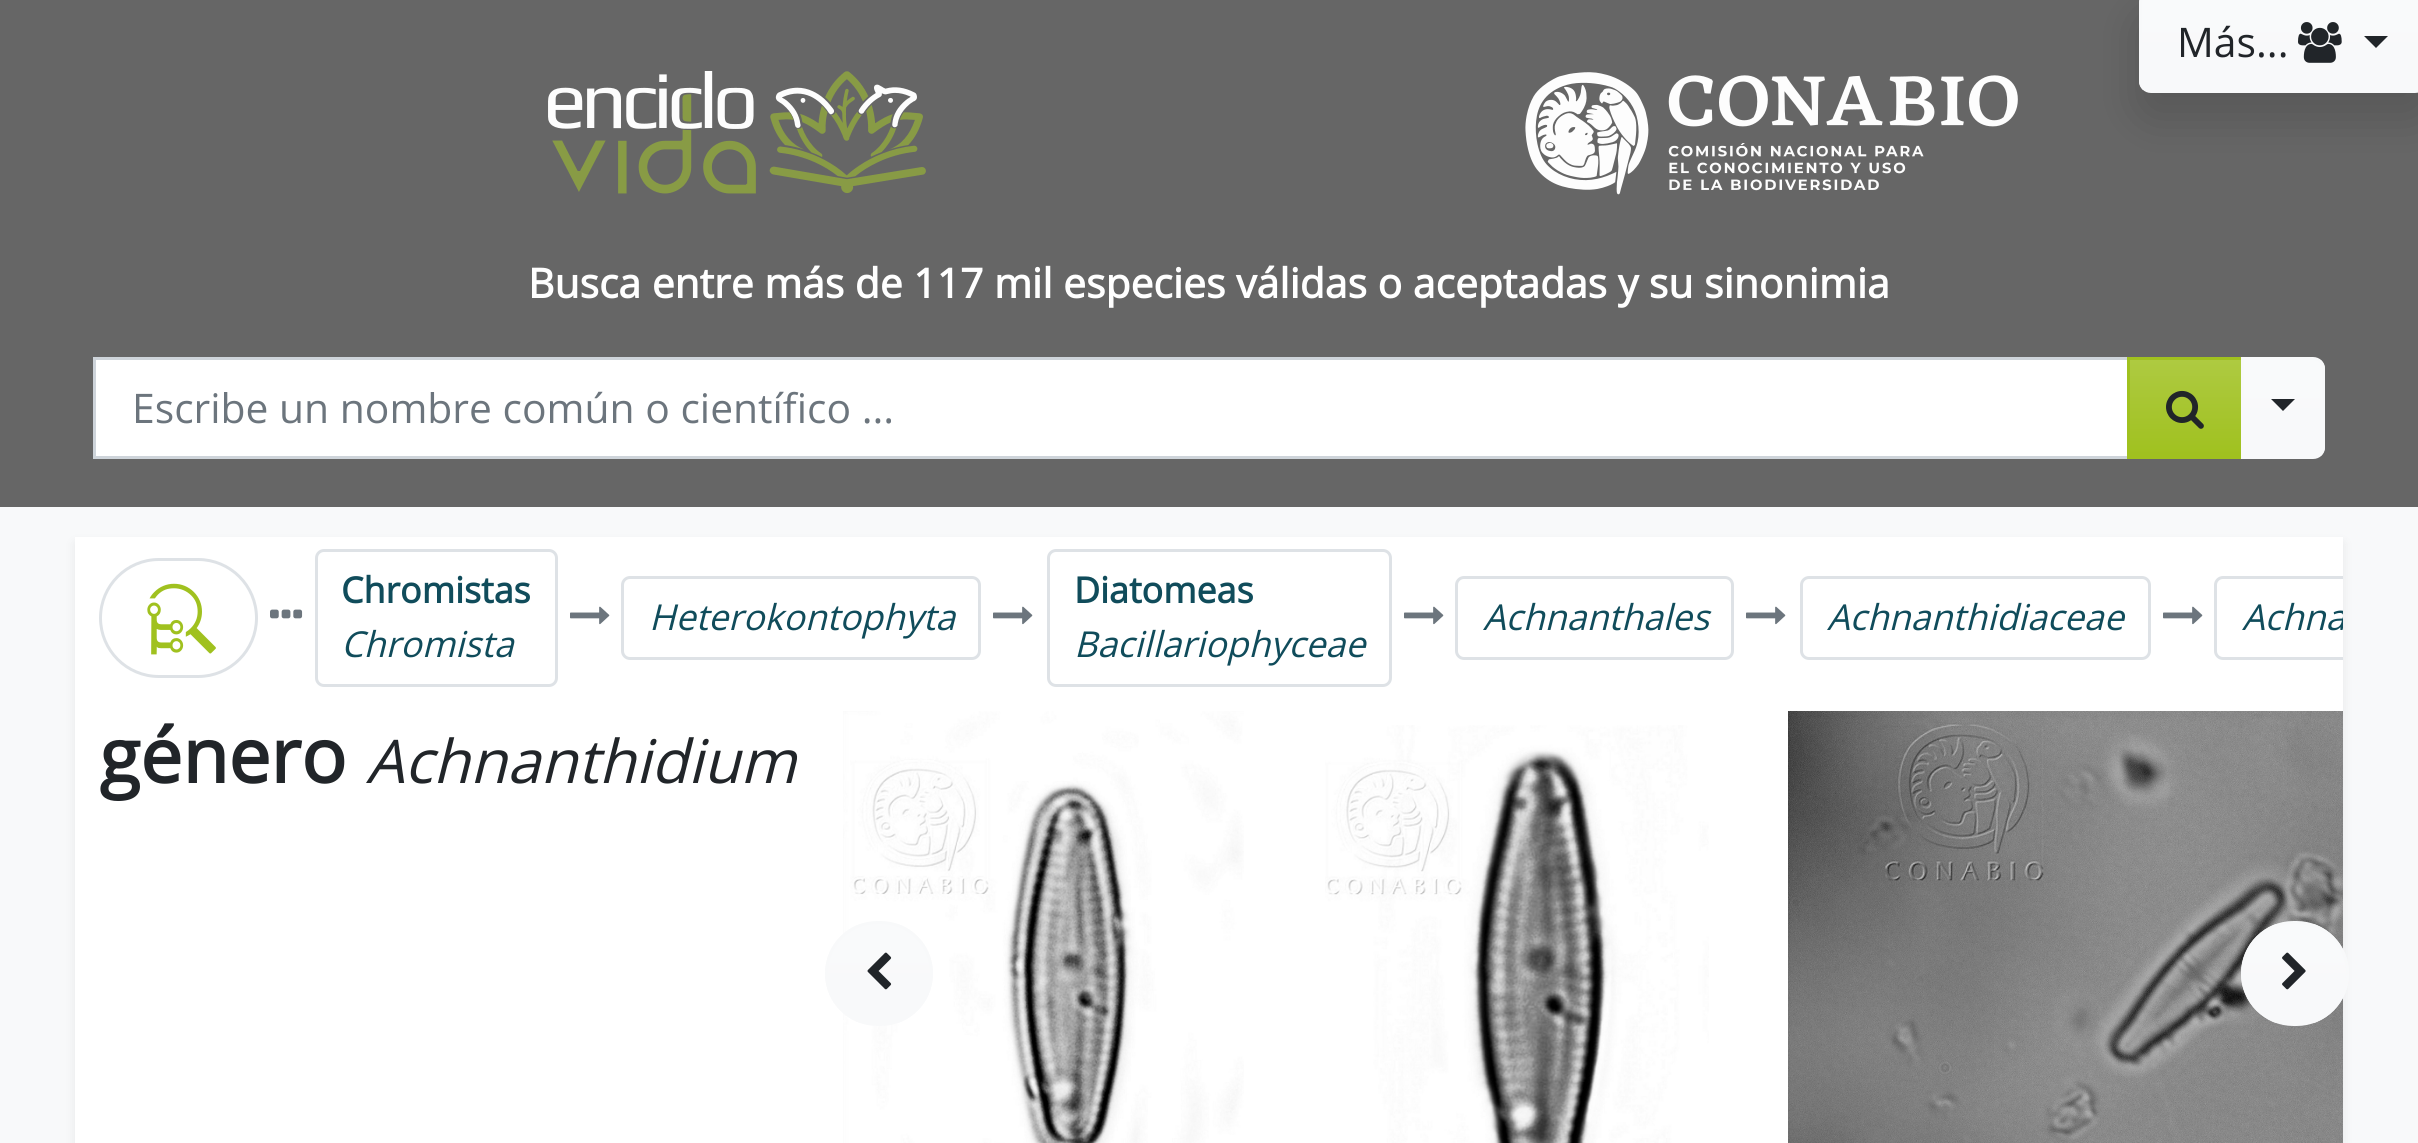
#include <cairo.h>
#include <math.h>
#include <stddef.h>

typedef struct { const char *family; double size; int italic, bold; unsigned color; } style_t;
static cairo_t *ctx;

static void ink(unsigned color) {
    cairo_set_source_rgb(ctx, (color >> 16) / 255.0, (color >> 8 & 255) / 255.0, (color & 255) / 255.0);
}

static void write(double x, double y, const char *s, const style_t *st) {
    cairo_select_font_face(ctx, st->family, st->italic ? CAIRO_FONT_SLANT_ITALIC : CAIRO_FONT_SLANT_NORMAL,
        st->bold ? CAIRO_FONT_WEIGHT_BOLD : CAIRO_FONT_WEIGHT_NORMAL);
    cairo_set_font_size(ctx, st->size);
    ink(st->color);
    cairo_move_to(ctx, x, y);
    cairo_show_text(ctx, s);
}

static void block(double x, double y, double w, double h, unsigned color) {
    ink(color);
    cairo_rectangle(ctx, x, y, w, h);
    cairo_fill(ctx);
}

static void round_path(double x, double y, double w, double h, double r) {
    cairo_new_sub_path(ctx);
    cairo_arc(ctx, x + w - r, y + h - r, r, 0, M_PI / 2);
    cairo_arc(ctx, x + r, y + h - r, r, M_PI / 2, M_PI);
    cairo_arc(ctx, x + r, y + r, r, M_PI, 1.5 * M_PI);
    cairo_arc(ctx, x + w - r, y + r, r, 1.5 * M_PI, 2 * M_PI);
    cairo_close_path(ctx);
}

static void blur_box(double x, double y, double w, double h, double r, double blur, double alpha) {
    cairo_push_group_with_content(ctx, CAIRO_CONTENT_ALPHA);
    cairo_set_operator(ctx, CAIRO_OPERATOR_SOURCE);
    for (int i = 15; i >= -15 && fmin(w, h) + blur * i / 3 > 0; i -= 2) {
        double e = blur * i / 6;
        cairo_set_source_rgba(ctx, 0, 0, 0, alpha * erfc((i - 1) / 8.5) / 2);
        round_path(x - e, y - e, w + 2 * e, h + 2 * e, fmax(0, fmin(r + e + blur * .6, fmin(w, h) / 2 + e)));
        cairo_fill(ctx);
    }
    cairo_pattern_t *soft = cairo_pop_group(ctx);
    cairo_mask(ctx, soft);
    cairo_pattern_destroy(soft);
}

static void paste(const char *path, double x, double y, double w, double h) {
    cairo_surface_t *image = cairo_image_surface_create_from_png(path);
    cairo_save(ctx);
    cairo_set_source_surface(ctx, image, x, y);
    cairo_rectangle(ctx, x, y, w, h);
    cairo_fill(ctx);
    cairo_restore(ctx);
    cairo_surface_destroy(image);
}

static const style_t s1 = {"Open Sans", 40.8, 0, 0, 0x212529};
static const style_t s2 = {"Open Sans", 40.8, 0, 1, 0xffffff};
static const style_t s3 = {"Open Sans", 40.8, 0, 0, 0x6c757d};
static const style_t s4 = {"Open Sans", 35.75, 0, 1, 0x104c5b};
static const style_t s5 = {"Open Sans", 35.75, 1, 0, 0x104c5b};
static const style_t s6 = {"Open Sans", 75, 0, 1, 0x212529};
static const style_t s7 = {"Open Sans", 60.25, 1, 0, 0x212529};

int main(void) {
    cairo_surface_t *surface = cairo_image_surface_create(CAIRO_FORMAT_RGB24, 2418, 1143);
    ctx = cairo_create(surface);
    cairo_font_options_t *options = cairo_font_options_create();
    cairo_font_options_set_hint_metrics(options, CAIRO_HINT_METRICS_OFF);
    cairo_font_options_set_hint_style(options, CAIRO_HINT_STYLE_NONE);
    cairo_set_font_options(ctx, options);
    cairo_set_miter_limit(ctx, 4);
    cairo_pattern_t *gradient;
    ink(0x666666);
    cairo_paint(ctx);
    ink(0x000000);
    blur_box(2139, 15, 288, 102, 12, 24, 0.15);
    cairo_save(ctx);
    round_path(2139, -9, 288, 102, 12);
    cairo_clip(ctx);
    gradient = cairo_pattern_create_linear(2283, -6, 2283, 90);
    cairo_pattern_add_color_stop_rgba(gradient, 0, 0.976, 0.98, 0.984, 1);
    cairo_pattern_add_color_stop_rgba(gradient, 1, 0.973, 0.976, 0.98, 1);
    cairo_set_source(ctx, gradient);
    cairo_pattern_destroy(gradient);
    cairo_rectangle(ctx, 2139, 0, 279, 90);
    cairo_fill(ctx);
    cairo_restore(ctx);
    round_path(2140.5, -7.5, 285, 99, 10.5);
    ink(0xf8f9fa);
    cairo_set_line_width(ctx, 3);
    cairo_stroke(ctx);
    write(2177, 57, "Más...", &s1);
    paste("pic1.png", 2298, 22, 44, 41);
    cairo_new_path(ctx);
    cairo_move_to(ctx, 2364, 36);
    cairo_line_to(ctx, 2388, 36);
    cairo_line_to(ctx, 2376, 48);
    cairo_close_path(ctx);
    cairo_fill(ctx);
    paste("pic2.png", 548, 71, 369, 58);
    paste("pic3.png", 552, 71, 374, 123);
    paste("pic4.png", 1525, 72, 493, 123);
    write(528, 298, "Busca entre más de 117 mil especies válidas o aceptadas y su sinonimia", &s2);
    cairo_rectangle(ctx, 94.5, 358.5, 2034, 99);
    cairo_fill_preserve(ctx);
    ink(0xced4da);
    cairo_stroke(ctx);
    write(132, 423, "Escribe un nombre común o científico ...", &s3);
    gradient = cairo_pattern_create_linear(2186, 360, 2186, 456);
    cairo_pattern_add_color_stop_rgba(gradient, 0, 0.682, 0.792, 0.255, 1);
    cairo_pattern_add_color_stop_rgba(gradient, 1, 0.627, 0.757, 0.122, 1);
    cairo_set_source(ctx, gradient);
    cairo_pattern_destroy(gradient);
    cairo_rectangle(ctx, 2130, 360, 111, 96);
    cairo_fill(ctx);
    cairo_rectangle(ctx, 2128.5, 358.5, 114, 99);
    ink(0xa0c11f);
    cairo_stroke(ctx);
    paste("pic5.png", 2166, 390, 38, 39);
    cairo_save(ctx);
    cairo_new_path(ctx);
    cairo_move_to(ctx, 2241, 357);
    cairo_line_to(ctx, 2313, 357);
    cairo_curve_to(ctx, 2319.5, 357, 2325, 362.5, 2325, 369);
    cairo_line_to(ctx, 2325, 447);
    cairo_curve_to(ctx, 2325, 453.5, 2319.5, 459, 2313, 459);
    cairo_line_to(ctx, 2241, 459);
    cairo_close_path(ctx);
    cairo_clip(ctx);
    gradient = cairo_pattern_create_linear(2283, 360, 2283, 456);
    cairo_pattern_add_color_stop_rgba(gradient, 0, 0.976, 0.98, 0.984, 1);
    cairo_pattern_add_color_stop_rgba(gradient, 1, 0.973, 0.976, 0.98, 1);
    cairo_set_source(ctx, gradient);
    cairo_pattern_destroy(gradient);
    cairo_rectangle(ctx, 2244, 360, 81, 96);
    cairo_fill(ctx);
    cairo_restore(ctx);
    cairo_new_path(ctx);
    cairo_move_to(ctx, 2242.5, 358.5);
    cairo_line_to(ctx, 2313, 358.5);
    cairo_curve_to(ctx, 2319, 358.5, 2323.5, 363, 2323.5, 369);
    cairo_line_to(ctx, 2323.5, 447);
    cairo_curve_to(ctx, 2323.5, 453, 2319, 457.5, 2313, 457.5);
    cairo_line_to(ctx, 2242.5, 457.5);
    cairo_close_path(ctx);
    ink(0xf8f9fa);
    cairo_stroke(ctx);
    ink(0x212529);
    cairo_new_path(ctx);
    cairo_move_to(ctx, 2271, 399);
    cairo_line_to(ctx, 2295, 399);
    cairo_line_to(ctx, 2283, 411);
    cairo_close_path(ctx);
    cairo_fill(ctx);
    block(0, 507, 2418, 636, 0xf8f9fa);
    ink(0x000000);
    blur_box(75, 543, 2268, 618, 0, 6, 0.07);
    block(75, 537, 2268, 606, 0xffffff);
    round_path(100.5, 559.5, 156, 117, 58.5);
    ink(0xdee2e6);
    cairo_stroke(ctx);
    paste("pic6.png", 147, 583, 69, 72);
    paste("pic7.png", 270, 609, 33, 10);
    round_path(316.5, 550.5, 240, 135, 7.5);
    cairo_stroke(ctx);
    write(341, 603, "Chromistas", &s4);
    write(341, 657, "Chromista", &s5);
    paste("pic8.png", 570, 606, 40, 19);
    round_path(622.5, 577.5, 357, 81, 7.5);
    ink(0xdee2e6);
    cairo_stroke(ctx);
    write(649, 630, "Heterokontophyta", &s5);
    paste("pic8.png", 993, 606, 40, 19);
    round_path(1048.5, 550.5, 342, 135, 7.5);
    ink(0xdee2e6);
    cairo_stroke(ctx);
    write(1074, 603, "Diatomeas", &s4);
    write(1074, 657, "Bacillariophyceae", &s5);
    paste("pic8.png", 1404, 606, 40, 19);
    round_path(1456.5, 577.5, 276, 81, 7.5);
    ink(0xdee2e6);
    cairo_stroke(ctx);
    write(1483, 630, "Achnanthales", &s5);
    paste("pic8.png", 1746, 606, 40, 19);
    round_path(1801.5, 577.5, 348, 81, 7.5);
    ink(0xdee2e6);
    cairo_stroke(ctx);
    write(1827, 630, "Achnanthidiaceae", &s5);
    paste("pic8.png", 2163, 606, 40, 19);
    cairo_save(ctx);
    cairo_rectangle(ctx, 75, 549, 2268, 138);
    cairo_clip(ctx);
    round_path(2215.5, 577.5, 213, 81, 7.5);
    ink(0xdee2e6);
    cairo_stroke(ctx);
    write(2242, 630, "Achna", &s5);
    cairo_restore(ctx);
    write(99, 783, "género", &s6);
    write(366, 783, "Achnanthidium", &s7);
    paste("pic9.png", 843, 711, 401, 432);
    paste("pic10.png", 1325, 725, 384, 418);
    paste("pic11.png", 1788, 711, 555, 432);
    cairo_save(ctx);
    round_path(825, 921, 108, 105, 52.5);
    cairo_clip(ctx);
    gradient = cairo_pattern_create_linear(879, 924, 879, 1023);
    cairo_pattern_add_color_stop_rgba(gradient, 0, 0.976, 0.98, 0.984, 1);
    cairo_pattern_add_color_stop_rgba(gradient, 1, 0.973, 0.976, 0.98, 1);
    cairo_set_source(ctx, gradient);
    cairo_pattern_destroy(gradient);
    cairo_rectangle(ctx, 825, 924, 108, 99);
    cairo_fill(ctx);
    cairo_restore(ctx);
    round_path(826.5, 922.5, 105, 102, 51);
    ink(0xf8f9fa);
    cairo_stroke(ctx);
    paste("pic12.png", 867, 952, 25, 38);
    cairo_save(ctx);
    round_path(2241, 921, 108, 105, 52.5);
    cairo_clip(ctx);
    gradient = cairo_pattern_create_linear(2295, 924, 2295, 1023);
    cairo_pattern_add_color_stop_rgba(gradient, 0, 0.976, 0.98, 0.984, 1);
    cairo_pattern_add_color_stop_rgba(gradient, 1, 0.973, 0.976, 0.98, 1);
    cairo_set_source(ctx, gradient);
    cairo_pattern_destroy(gradient);
    cairo_rectangle(ctx, 2241, 924, 108, 99);
    cairo_fill(ctx);
    cairo_restore(ctx);
    round_path(2242.5, 922.5, 105, 102, 51);
    cairo_stroke(ctx);
    paste("pic13.png", 2282, 952, 24, 38);
    cairo_surface_write_to_png(surface, "screenshot.png");
    cairo_font_options_destroy(options);
    cairo_destroy(ctx);
    cairo_surface_destroy(surface);
    return 0;
}
